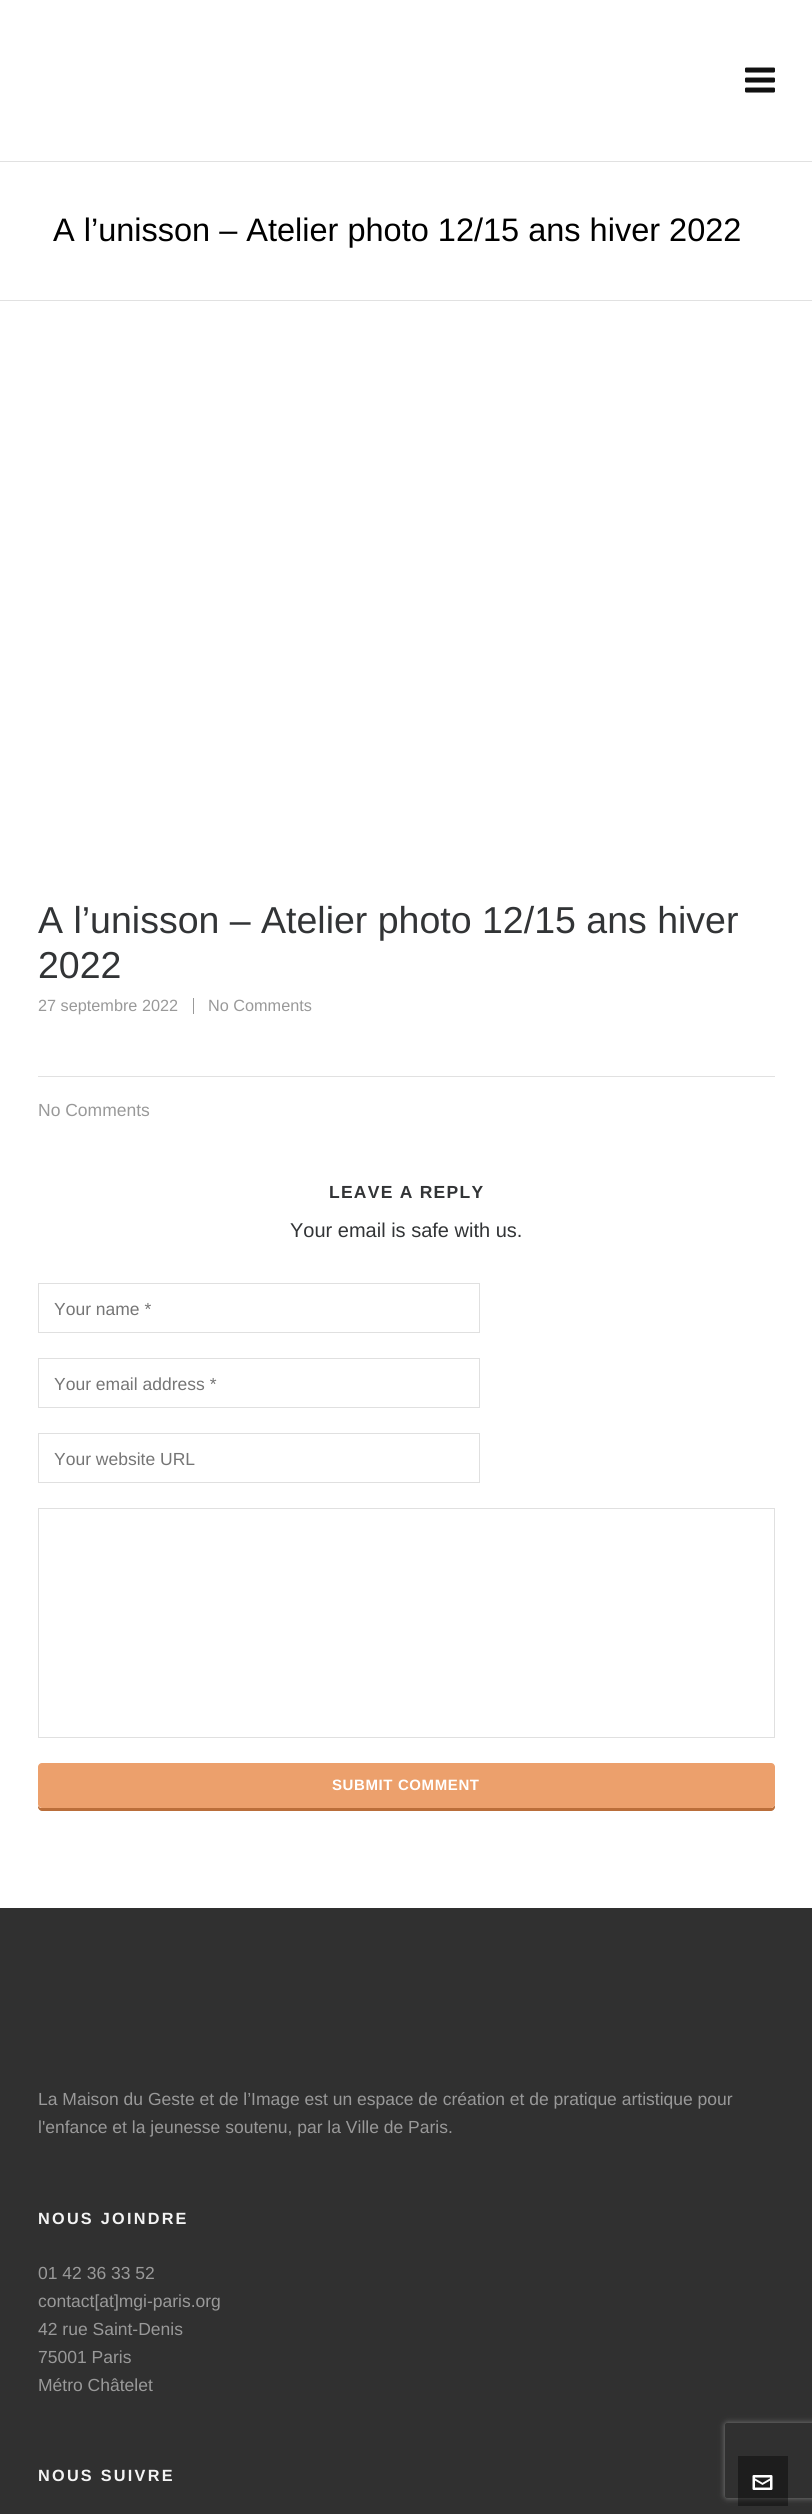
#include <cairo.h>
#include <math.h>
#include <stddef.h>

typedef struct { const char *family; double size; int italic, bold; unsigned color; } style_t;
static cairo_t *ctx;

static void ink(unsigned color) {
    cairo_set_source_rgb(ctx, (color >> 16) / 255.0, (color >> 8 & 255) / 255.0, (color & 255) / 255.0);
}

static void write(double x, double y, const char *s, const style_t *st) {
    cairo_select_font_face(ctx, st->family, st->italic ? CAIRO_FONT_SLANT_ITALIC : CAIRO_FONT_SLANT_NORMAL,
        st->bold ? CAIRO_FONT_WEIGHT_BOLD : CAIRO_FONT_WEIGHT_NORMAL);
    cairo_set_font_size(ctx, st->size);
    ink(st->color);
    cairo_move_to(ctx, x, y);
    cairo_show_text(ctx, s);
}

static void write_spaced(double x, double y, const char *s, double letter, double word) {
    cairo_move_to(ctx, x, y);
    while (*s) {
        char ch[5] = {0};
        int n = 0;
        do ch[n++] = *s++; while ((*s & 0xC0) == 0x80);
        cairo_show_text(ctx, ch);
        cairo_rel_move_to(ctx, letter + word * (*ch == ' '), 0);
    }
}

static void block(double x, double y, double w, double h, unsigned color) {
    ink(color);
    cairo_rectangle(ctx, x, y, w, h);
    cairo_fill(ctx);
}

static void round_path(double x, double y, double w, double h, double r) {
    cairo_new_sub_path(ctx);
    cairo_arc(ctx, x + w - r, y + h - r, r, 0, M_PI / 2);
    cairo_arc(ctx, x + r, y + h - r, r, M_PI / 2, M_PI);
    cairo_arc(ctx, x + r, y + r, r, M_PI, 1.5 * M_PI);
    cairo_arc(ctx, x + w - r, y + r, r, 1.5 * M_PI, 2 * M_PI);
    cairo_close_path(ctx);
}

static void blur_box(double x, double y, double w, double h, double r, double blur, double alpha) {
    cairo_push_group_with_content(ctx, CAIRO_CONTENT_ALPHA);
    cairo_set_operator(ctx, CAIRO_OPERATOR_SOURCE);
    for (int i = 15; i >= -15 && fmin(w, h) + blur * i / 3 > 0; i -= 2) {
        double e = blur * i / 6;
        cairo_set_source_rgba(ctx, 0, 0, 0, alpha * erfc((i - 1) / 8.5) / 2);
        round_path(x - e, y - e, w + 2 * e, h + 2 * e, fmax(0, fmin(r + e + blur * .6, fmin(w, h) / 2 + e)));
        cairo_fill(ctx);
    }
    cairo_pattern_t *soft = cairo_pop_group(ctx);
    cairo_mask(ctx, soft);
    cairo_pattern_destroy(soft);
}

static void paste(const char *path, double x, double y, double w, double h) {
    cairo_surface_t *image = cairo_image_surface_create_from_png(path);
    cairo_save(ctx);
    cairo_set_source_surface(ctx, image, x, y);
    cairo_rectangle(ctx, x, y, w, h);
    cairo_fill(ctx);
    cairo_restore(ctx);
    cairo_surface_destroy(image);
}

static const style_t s1 = {"Liberation Sans", 32.5, 0, 0, 0x000000};
static const style_t s2 = {"Liberation Sans", 37.5, 0, 0, 0x323436};
static const style_t s3 = {"Liberation Sans", 16.25, 0, 0, 0x999999};
static const style_t s4 = {"Liberation Sans", 17.5, 0, 0, 0x999999};
static const style_t s5 = {"Liberation Sans", 20, 0, 0, 0x323436};
static const style_t s6 = {"Liberation Sans", 17.5, 0, 0, 0x757575};

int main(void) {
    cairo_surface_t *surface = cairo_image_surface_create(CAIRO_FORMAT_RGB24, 812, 2514);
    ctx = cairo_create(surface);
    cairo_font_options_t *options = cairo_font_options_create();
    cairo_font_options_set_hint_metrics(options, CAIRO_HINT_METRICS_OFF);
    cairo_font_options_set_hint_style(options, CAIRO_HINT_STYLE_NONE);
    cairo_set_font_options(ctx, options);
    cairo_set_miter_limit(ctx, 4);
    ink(0xffffff);
    cairo_paint(ctx);
    block(0, 161, 812, 1, 0xe1e1e1);
    paste("pic1.png", 745, 67, 30, 26);
    block(0, 300, 812, 1, 0xe1e1e1);
    write(53, 241, "A l’unisson – Atelier photo 12/15 ans hiver 2022", &s1);
    write(38, 933, "A l’unisson – Atelier photo 12/15 ans hiver", &s2);
    write(38, 978, "2022", &s2);
    write(38, 1011, "27 septembre 2022", &s3);
    block(193, 998, 1, 16, 0x999999);
    write(208, 1011, "No Comments", &s3);
    block(38, 1076, 737, 1, 0xe1e1e1);
    write(38, 1116, "No Comments", &s4);
    cairo_select_font_face(ctx, "Liberation Sans", CAIRO_FONT_SLANT_NORMAL, CAIRO_FONT_WEIGHT_BOLD);
    ink(0x323436);
    write_spaced(329, 1198, "LEAVE A REPLY", 1.25, 0);
    write(290, 1237, "Your email is safe with us.", &s5);
    cairo_rectangle(ctx, 38.5, 1283.5, 441, 49);
    ink(0xe0e0e0);
    cairo_set_line_width(ctx, 1);
    cairo_stroke(ctx);
    write(54, 1315, "Your name *", &s6);
    cairo_rectangle(ctx, 38.5, 1358.5, 441, 49);
    ink(0xe0e0e0);
    cairo_stroke(ctx);
    write(54, 1390, "Your email address *", &s6);
    cairo_rectangle(ctx, 38.5, 1433.5, 441, 49);
    ink(0xe0e0e0);
    cairo_stroke(ctx);
    write(54, 1465, "Your website URL", &s6);
    cairo_rectangle(ctx, 38.5, 1508.5, 736, 229);
    ink(0xe0e0e0);
    cairo_stroke(ctx);
    ink(0xba6e3a);
    cairo_new_path(ctx);
    cairo_move_to(ctx, 38, 1806);
    cairo_line_to(ctx, 38, 1807);
    cairo_curve_to(ctx, 38, 1809, 40, 1811, 42, 1811);
    cairo_line_to(ctx, 771, 1811);
    cairo_curve_to(ctx, 773, 1811, 775, 1809, 775, 1807);
    cairo_line_to(ctx, 775, 1804);
    cairo_curve_to(ctx, 775, 1806, 773, 1808, 771, 1808);
    cairo_line_to(ctx, 41, 1808);
    cairo_curve_to(ctx, 40, 1808, 39, 1807, 38, 1806);
    cairo_close_path(ctx);
    cairo_fill(ctx);
    ink(0xeca06c);
    round_path(38, 1763, 737, 45, 4);
    cairo_fill(ctx);
    cairo_select_font_face(ctx, "Liberation Sans", CAIRO_FONT_SLANT_NORMAL, CAIRO_FONT_WEIGHT_BOLD);
    cairo_set_font_size(ctx, 15);
    ink(0xffffff);
    write_spaced(332, 1790, "SUBMIT COMMENT", 0.6, 0);
    block(0, 1908, 812, 606, 0x303030);
    write(38, 2105, "La Maison du Geste et de l’Image est un espace de création et de pratique artistique pour", &s4);
    write(38, 2133, "l'enfance et la jeunesse soutenu, par la Ville de Paris.", &s4);
    cairo_select_font_face(ctx, "Liberation Sans", CAIRO_FONT_SLANT_NORMAL, CAIRO_FONT_WEIGHT_BOLD);
    cairo_set_font_size(ctx, 16.25);
    ink(0xf4f4f4);
    write_spaced(38, 2224, "NOUS JOINDRE", 2.25, 0);
    write(38, 2279, "01 42 36 33 52", &s4);
    write(38, 2307, "contact[at]mgi-paris.org", &s4);
    write(38, 2335, "42 rue Saint-Denis", &s4);
    write(38, 2363, "75001 Paris", &s4);
    write(38, 2391, "Métro Châtelet", &s4);
    cairo_select_font_face(ctx, "Liberation Sans", CAIRO_FONT_SLANT_NORMAL, CAIRO_FONT_WEIGHT_BOLD);
    cairo_set_font_size(ctx, 16.25);
    ink(0xf4f4f4);
    write_spaced(38, 2481, "NOUS SUIVRE", 2.25, 0);
    cairo_save(ctx);
    cairo_set_fill_rule(ctx, CAIRO_FILL_RULE_EVEN_ODD);
    cairo_new_path(ctx);
    cairo_move_to(ctx, 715, 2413);
    cairo_line_to(ctx, 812, 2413);
    cairo_line_to(ctx, 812, 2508);
    cairo_line_to(ctx, 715, 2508);
    cairo_close_path(ctx);
    cairo_move_to(ctx, 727.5, 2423);
    cairo_line_to(ctx, 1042.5, 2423);
    cairo_curve_to(ctx, 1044, 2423, 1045, 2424, 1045, 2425.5);
    cairo_line_to(ctx, 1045, 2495.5);
    cairo_curve_to(ctx, 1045, 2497, 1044, 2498, 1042.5, 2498);
    cairo_line_to(ctx, 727.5, 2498);
    cairo_curve_to(ctx, 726, 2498, 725, 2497, 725, 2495.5);
    cairo_line_to(ctx, 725, 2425.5);
    cairo_curve_to(ctx, 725, 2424, 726, 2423, 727.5, 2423);
    cairo_close_path(ctx);
    cairo_clip(ctx);
    ink(0x808080);
    blur_box(725, 2423, 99, 75, 2.5, 3, 1);
    cairo_restore(ctx);
    cairo_set_source_rgba(ctx, 0, 0, 0, 0.4);
    cairo_rectangle(ctx, 738, 2456, 50, 50);
    cairo_fill(ctx);
    paste("pic2.png", 752, 2475, 21, 15);
    cairo_surface_write_to_png(surface, "screenshot.png");
    cairo_font_options_destroy(options);
    cairo_destroy(ctx);
    cairo_surface_destroy(surface);
    return 0;
}
